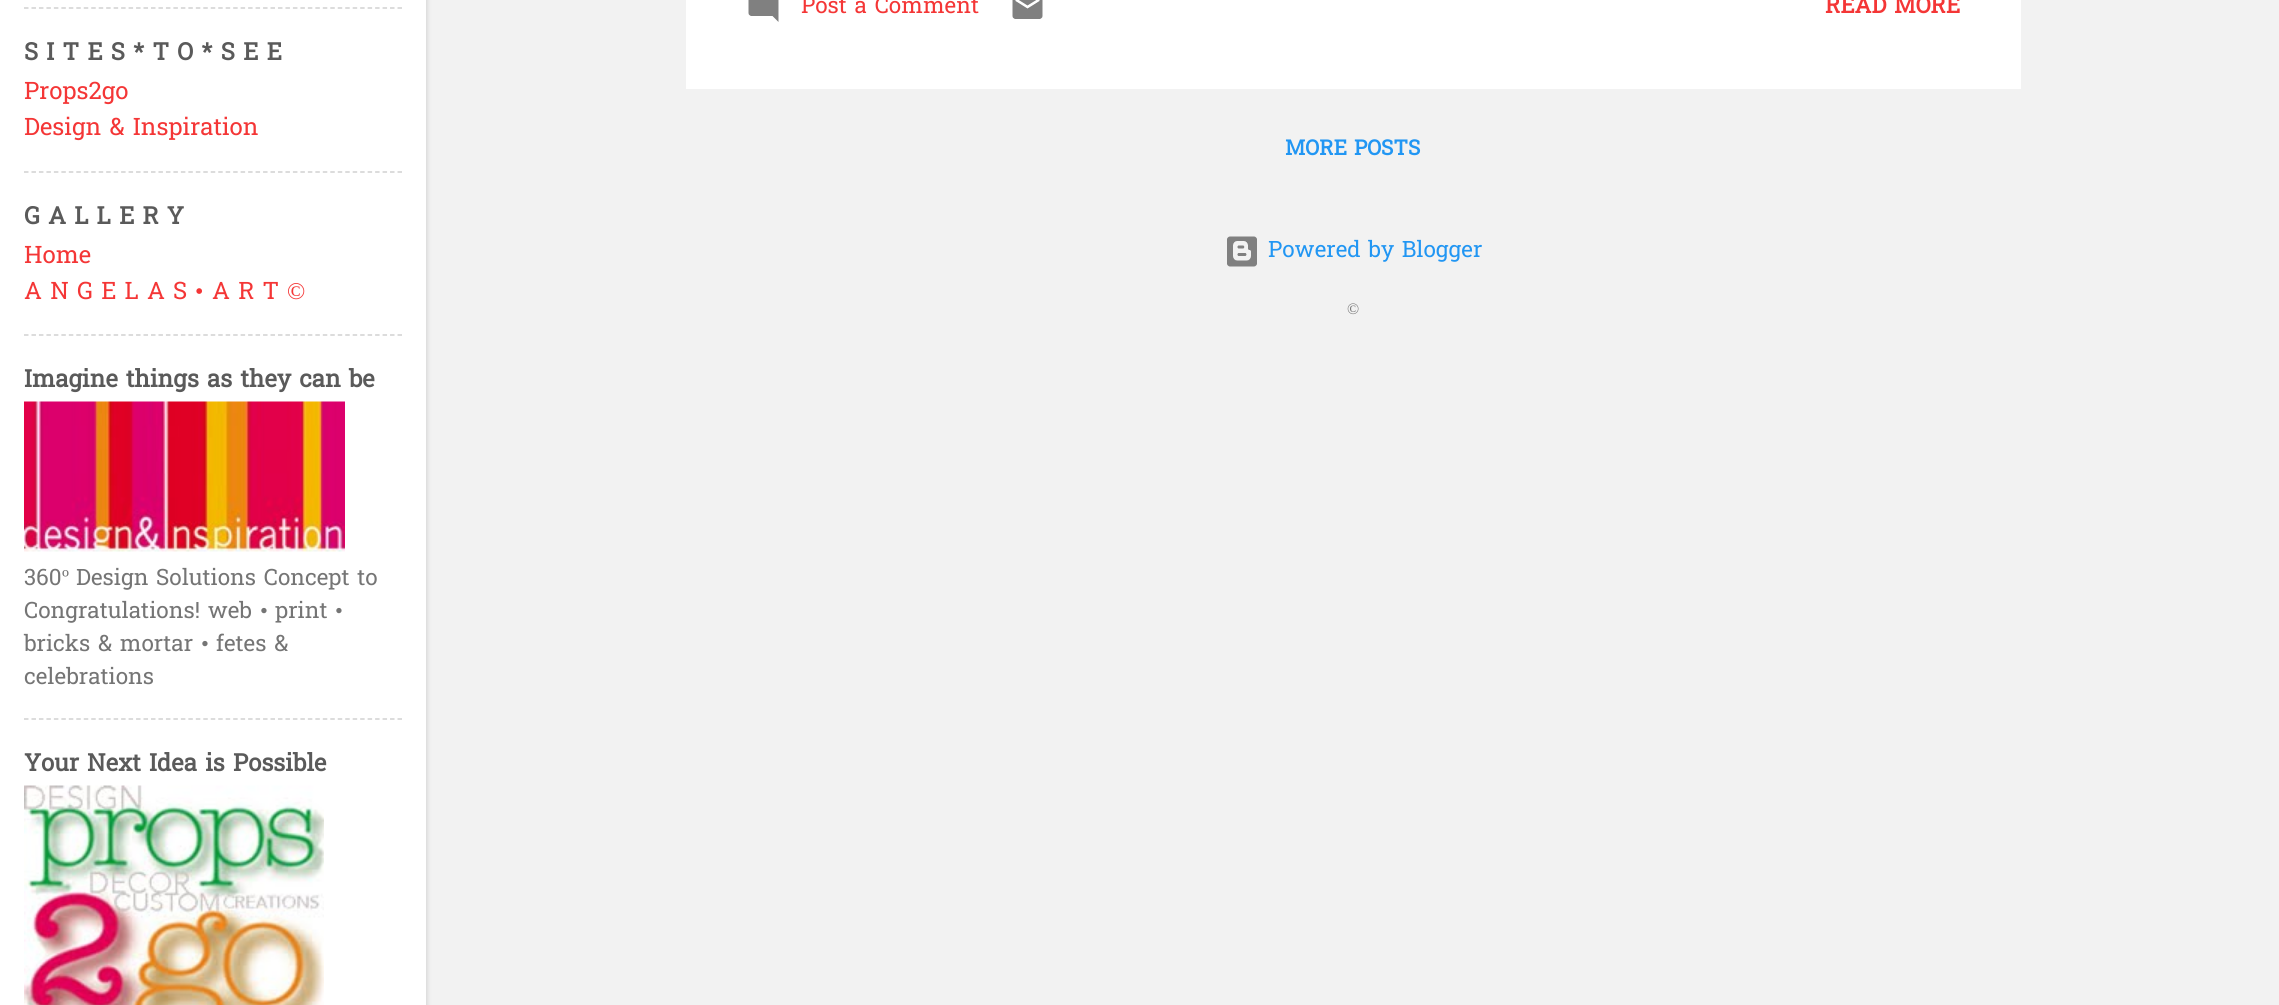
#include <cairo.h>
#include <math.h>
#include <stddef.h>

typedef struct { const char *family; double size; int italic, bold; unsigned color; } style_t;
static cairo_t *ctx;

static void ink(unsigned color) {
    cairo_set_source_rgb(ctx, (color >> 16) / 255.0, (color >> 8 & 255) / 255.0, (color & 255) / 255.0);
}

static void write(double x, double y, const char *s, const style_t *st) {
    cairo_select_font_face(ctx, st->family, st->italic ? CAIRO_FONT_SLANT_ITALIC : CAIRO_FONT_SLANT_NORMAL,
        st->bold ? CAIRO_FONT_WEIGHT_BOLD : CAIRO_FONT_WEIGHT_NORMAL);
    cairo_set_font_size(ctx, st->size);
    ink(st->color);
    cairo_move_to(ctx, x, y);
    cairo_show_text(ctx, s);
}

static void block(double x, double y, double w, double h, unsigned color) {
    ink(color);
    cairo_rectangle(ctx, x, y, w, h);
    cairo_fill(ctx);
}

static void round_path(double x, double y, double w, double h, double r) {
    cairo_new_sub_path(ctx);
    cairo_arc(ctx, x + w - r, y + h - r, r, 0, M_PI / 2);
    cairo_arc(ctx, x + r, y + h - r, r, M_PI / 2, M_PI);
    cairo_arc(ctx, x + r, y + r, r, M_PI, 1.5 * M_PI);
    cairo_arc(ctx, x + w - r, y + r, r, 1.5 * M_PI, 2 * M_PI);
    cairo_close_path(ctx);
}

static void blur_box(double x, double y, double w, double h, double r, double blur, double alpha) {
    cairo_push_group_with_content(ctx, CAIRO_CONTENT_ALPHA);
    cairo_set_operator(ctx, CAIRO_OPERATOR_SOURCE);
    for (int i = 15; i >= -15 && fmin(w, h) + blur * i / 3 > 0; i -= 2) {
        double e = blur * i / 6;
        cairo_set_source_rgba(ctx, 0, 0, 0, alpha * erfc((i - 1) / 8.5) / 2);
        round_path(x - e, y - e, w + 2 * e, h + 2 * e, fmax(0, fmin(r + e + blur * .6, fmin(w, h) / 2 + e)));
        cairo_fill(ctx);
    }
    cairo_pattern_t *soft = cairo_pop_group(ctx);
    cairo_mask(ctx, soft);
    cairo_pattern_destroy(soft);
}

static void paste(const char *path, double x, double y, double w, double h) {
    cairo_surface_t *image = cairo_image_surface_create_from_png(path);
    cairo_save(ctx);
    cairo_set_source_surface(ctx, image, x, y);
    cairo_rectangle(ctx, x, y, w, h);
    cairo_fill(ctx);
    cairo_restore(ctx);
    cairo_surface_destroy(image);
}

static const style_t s1 = {"Hanuman", 24, 0, 1, 0x5a5a5a};
static const style_t s2 = {"Hanuman", 24, 0, 0, 0xf43636};
static const style_t s3 = {"Liberation Serif", 24, 0, 0, 0xf43636};
static const style_t s4 = {"Hanuman", 22.5, 0, 0, 0x757575};
static const style_t s5 = {"Liberation Serif", 22.5, 0, 0, 0x757575};
static const style_t s6 = {"Hanuman", 22.5, 0, 0, 0xf43636};
static const style_t s7 = {"Hanuman", 22.5, 0, 1, 0xf43636};
static const style_t s8 = {"Hanuman", 21, 0, 1, 0x2196f3};
static const style_t s9 = {"Hanuman", 22.5, 0, 0, 0x2196f3};
static const style_t s10 = {"Liberation Serif", 16, 0, 0, 0x757575};

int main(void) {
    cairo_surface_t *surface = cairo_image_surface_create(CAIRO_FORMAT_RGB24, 2279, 1005);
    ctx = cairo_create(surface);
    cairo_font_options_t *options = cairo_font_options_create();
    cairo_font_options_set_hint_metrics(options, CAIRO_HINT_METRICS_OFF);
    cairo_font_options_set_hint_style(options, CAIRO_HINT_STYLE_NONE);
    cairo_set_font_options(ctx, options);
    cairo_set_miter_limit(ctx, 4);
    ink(0xf2f2f2);
    cairo_paint(ctx);
    ink(0x000000);
    blur_box(2, -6, 426, 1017, 0, 2, 0.1);
    block(0, 0, 426, 1005, 0xffffff);
    cairo_new_path(ctx);
    cairo_move_to(ctx, 24, 8);
    cairo_line_to(ctx, 402, 8);
    ink(0xd1d1d1);
    cairo_set_line_width(ctx, 1.5);
    cairo_set_dash(ctx, (double[]){4.5, 2.97}, 2, 0);
    cairo_stroke(ctx);
    write(24, 60, "S I T E S * T O * S E E", &s1);
    write(24, 99, "Props2go", &s2);
    write(24, 135, "Design & Inspiration", &s2);
    cairo_new_path(ctx);
    cairo_move_to(ctx, 24, 172);
    cairo_line_to(ctx, 402, 172);
    ink(0xd1d1d1);
    cairo_stroke(ctx);
    write(24, 224, "G A L L E R Y", &s1);
    write(24, 263, "Home", &s2);
    write(24, 299, "A N G E L A S", &s2);
    write(195, 299, "•", &s3);
    write(212, 299, "A R T", &s2);
    write(287, 299, "©", &s3);
    cairo_new_path(ctx);
    cairo_move_to(ctx, 24, 335);
    cairo_line_to(ctx, 402, 335);
    ink(0xd1d1d1);
    cairo_stroke(ctx);
    write(24, 387, "Imagine things as they can be", &s1);
    paste("pic1.png", 24, 401, 321, 151);
    write(24, 585, "360", &s4);
    write(62, 585, "º", &s5);
    write(76, 585, "Design Solutions Concept to", &s4);
    write(24, 618, "Congratulations! web", &s4);
    write(260, 618, "•", &s5);
    write(275, 618, "print", &s4);
    write(335, 618, "•", &s5);
    write(24, 651, "bricks & mortar", &s4);
    write(201, 651, "•", &s5);
    write(216, 651, "fetes &", &s4);
    write(24, 684, "celebrations", &s4);
    cairo_new_path(ctx);
    cairo_move_to(ctx, 24, 719);
    cairo_line_to(ctx, 402, 719);
    ink(0xd1d1d1);
    cairo_stroke(ctx);
    write(24, 771, "Your Next Idea is Possible", &s1);
    paste("pic2.png", 24, 785, 300, 220);
    block(686, 0, 1335, 89, 0xffffff);
    paste("pic3.png", 748, 0, 31, 22);
    write(801, 13, "Post a Comment", &s6);
    paste("pic4.png", 1012, 0, 31, 19);
    write(1825, 13, "READ MORE", &s7);
    write(1285, 155, "MORE POSTS", &s8);
    paste("pic5.png", 1227, 236, 30, 31);
    write(1268, 257, "Powered by Blogger", &s9);
    write(1347, 314, "©", &s10);
    cairo_surface_write_to_png(surface, "screenshot.png");
    cairo_font_options_destroy(options);
    cairo_destroy(ctx);
    cairo_surface_destroy(surface);
    return 0;
}
